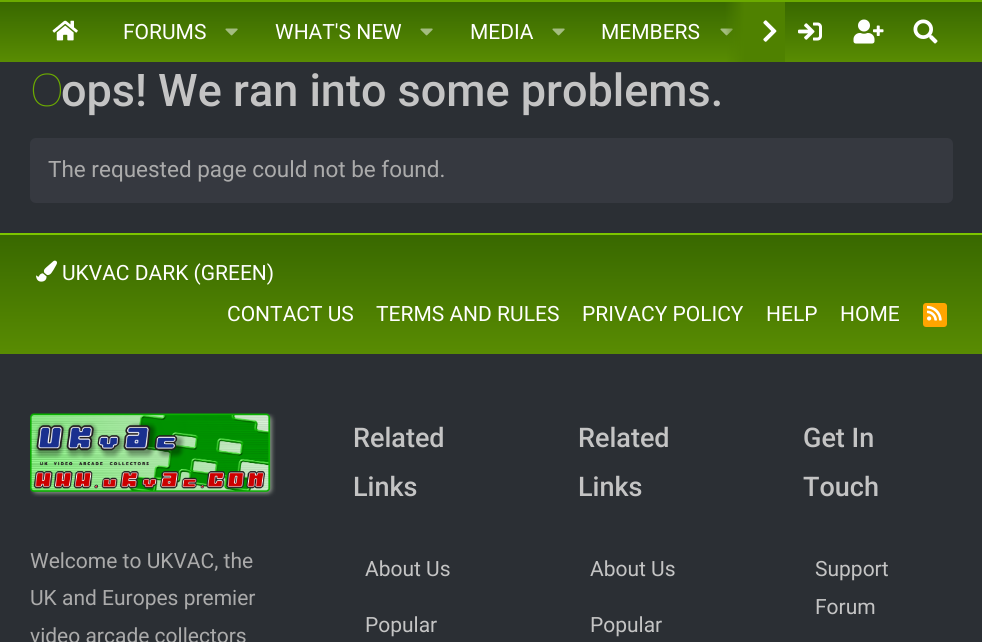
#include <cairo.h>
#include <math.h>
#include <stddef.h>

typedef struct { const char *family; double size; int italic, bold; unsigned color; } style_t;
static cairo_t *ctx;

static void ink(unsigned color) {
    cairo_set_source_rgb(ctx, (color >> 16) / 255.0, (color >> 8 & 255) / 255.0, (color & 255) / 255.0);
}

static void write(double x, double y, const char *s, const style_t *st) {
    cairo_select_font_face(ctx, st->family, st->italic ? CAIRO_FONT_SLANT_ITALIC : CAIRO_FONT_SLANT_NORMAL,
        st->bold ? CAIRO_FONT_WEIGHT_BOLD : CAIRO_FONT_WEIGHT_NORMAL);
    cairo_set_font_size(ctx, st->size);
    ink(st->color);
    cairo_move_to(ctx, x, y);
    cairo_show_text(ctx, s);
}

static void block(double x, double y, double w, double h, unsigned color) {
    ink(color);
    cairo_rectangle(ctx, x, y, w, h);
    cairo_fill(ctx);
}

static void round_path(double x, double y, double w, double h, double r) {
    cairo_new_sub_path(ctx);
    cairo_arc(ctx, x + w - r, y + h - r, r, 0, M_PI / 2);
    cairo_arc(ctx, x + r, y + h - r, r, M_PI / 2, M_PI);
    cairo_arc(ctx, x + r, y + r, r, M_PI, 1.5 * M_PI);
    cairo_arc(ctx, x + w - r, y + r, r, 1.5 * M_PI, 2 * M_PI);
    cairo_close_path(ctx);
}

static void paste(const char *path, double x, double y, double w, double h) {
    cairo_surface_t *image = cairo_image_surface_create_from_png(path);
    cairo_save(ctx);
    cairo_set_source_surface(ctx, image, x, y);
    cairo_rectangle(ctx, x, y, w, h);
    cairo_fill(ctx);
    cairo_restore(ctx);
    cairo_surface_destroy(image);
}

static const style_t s1 = {"Roboto", 21, 0, 0, 0xffffff};
static const style_t s2 = {"Noto Sans Thin", 45, 0, 0, 0x6cab00};
static const style_t s3 = {"Roboto Medium", 45, 0, 0, 0xc4c4c4};
static const style_t s4 = {"Roboto", 22.5, 0, 0, 0xababab};
static const style_t s5 = {"Roboto", 21, 0, 0, 0xababab};
static const style_t s6 = {"Roboto Medium", 27, 0, 0, 0xc4c4c4};
static const style_t s7 = {"Roboto", 21, 0, 0, 0xc4c4c4};

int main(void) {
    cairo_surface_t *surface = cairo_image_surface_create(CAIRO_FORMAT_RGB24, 982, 642);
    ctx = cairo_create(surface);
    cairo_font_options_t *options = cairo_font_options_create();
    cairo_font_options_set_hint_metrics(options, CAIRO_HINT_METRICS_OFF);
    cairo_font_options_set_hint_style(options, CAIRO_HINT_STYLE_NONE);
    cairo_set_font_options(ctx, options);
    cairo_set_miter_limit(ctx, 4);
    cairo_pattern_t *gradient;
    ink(0x2b2f34);
    cairo_paint(ctx);
    gradient = cairo_pattern_create_linear(491, 1.5, 491, 62);
    cairo_pattern_add_color_stop_rgba(gradient, 0, 0.22, 0.408, 0, 1);
    cairo_pattern_add_color_stop_rgba(gradient, 1, 0.349, 0.549, 0.008, 1);
    cairo_set_source(ctx, gradient);
    cairo_pattern_destroy(gradient);
    cairo_rectangle(ctx, 0, 2, 982, 60);
    cairo_fill(ctx);
    block(0, 0, 982, 2, 0x6cab00);
    paste("pic1.png", 52, 20, 26, 21);
    write(123, 39, "FORUMS", &s1);
    paste("pic2.png", 225, 28, 13, 8);
    write(275, 39, "WHAT'S NEW", &s1);
    paste("pic2.png", 420, 28, 13, 8);
    write(470, 39, "MEDIA", &s1);
    paste("pic2.png", 552, 28, 13, 8);
    write(601, 39, "MEMBERS", &s1);
    paste("pic2.png", 720, 28, 13, 8);
    gradient = cairo_pattern_create_linear(725, 32, 785, 32);
    cairo_pattern_add_color_stop_rgba(gradient, 0, 0.31, 0.506, 0, 0);
    cairo_pattern_add_color_stop_rgba(gradient, 0.33, 0.31, 0.506, 0, 1);
    cairo_set_source(ctx, gradient);
    cairo_pattern_destroy(gradient);
    cairo_rectangle(ctx, 725, 2, 60, 60);
    cairo_fill(ctx);
    paste("pic3.png", 763, 20, 14, 22);
    paste("pic4.png", 798, 22, 24, 19);
    paste("pic5.png", 853, 19, 31, 25);
    paste("pic6.png", 913, 19, 25, 25);
    write(30, 106, "O", &s2);
    write(61, 106, "ops! We ran into some problems.", &s3);
    ink(0x363940);
    round_path(30, 138, 923, 65, 6);
    cairo_fill(ctx);
    write(48, 177, "The requested page could not be found.", &s4);
    gradient = cairo_pattern_create_linear(491, 234, 491, 354);
    cairo_pattern_add_color_stop_rgba(gradient, 0, 0.22, 0.408, 0, 1);
    cairo_pattern_add_color_stop_rgba(gradient, 1, 0.349, 0.549, 0.008, 1);
    cairo_set_source(ctx, gradient);
    cairo_pattern_destroy(gradient);
    cairo_rectangle(ctx, 0, 235, 982, 119);
    cairo_fill(ctx);
    block(0, 233, 982, 2, 0x7dc500);
    paste("pic7.png", 36, 260, 21, 22);
    write(62, 280, "UKVAC DARK (GREEN)", &s1);
    write(227, 321, "CONTACT US", &s1);
    write(376, 321, "TERMS AND RULES", &s1);
    write(582, 321, "PRIVACY POLICY", &s1);
    write(766, 321, "HELP", &s1);
    write(840, 321, "HOME", &s1);
    ink(0xffa500);
    round_path(923, 303, 24, 24, 3);
    cairo_fill(ctx);
    paste("pic8.png", 927, 305, 15, 16);
    paste("pic9.png", 30, 413, 246, 84);
    write(30, 568, "Welcome to UKVAC, the", &s5);
    write(30, 605, "UK and Europes premier", &s5);
    write(30, 643, "video arcade collectors", &s5);
    write(353, 447, "Related", &s6);
    write(353, 496, "Links", &s6);
    write(365, 576, "About Us", &s7);
    write(365, 632, "Popular", &s7);
    write(578, 447, "Related", &s6);
    write(578, 496, "Links", &s6);
    write(590, 576, "About Us", &s7);
    write(590, 632, "Popular", &s7);
    write(803, 447, "Get In", &s6);
    write(803, 496, "Touch", &s6);
    write(815, 576, "Support", &s7);
    write(815, 614, "Forum", &s7);
    cairo_surface_write_to_png(surface, "screenshot.png");
    cairo_font_options_destroy(options);
    cairo_destroy(ctx);
    cairo_surface_destroy(surface);
    return 0;
}
